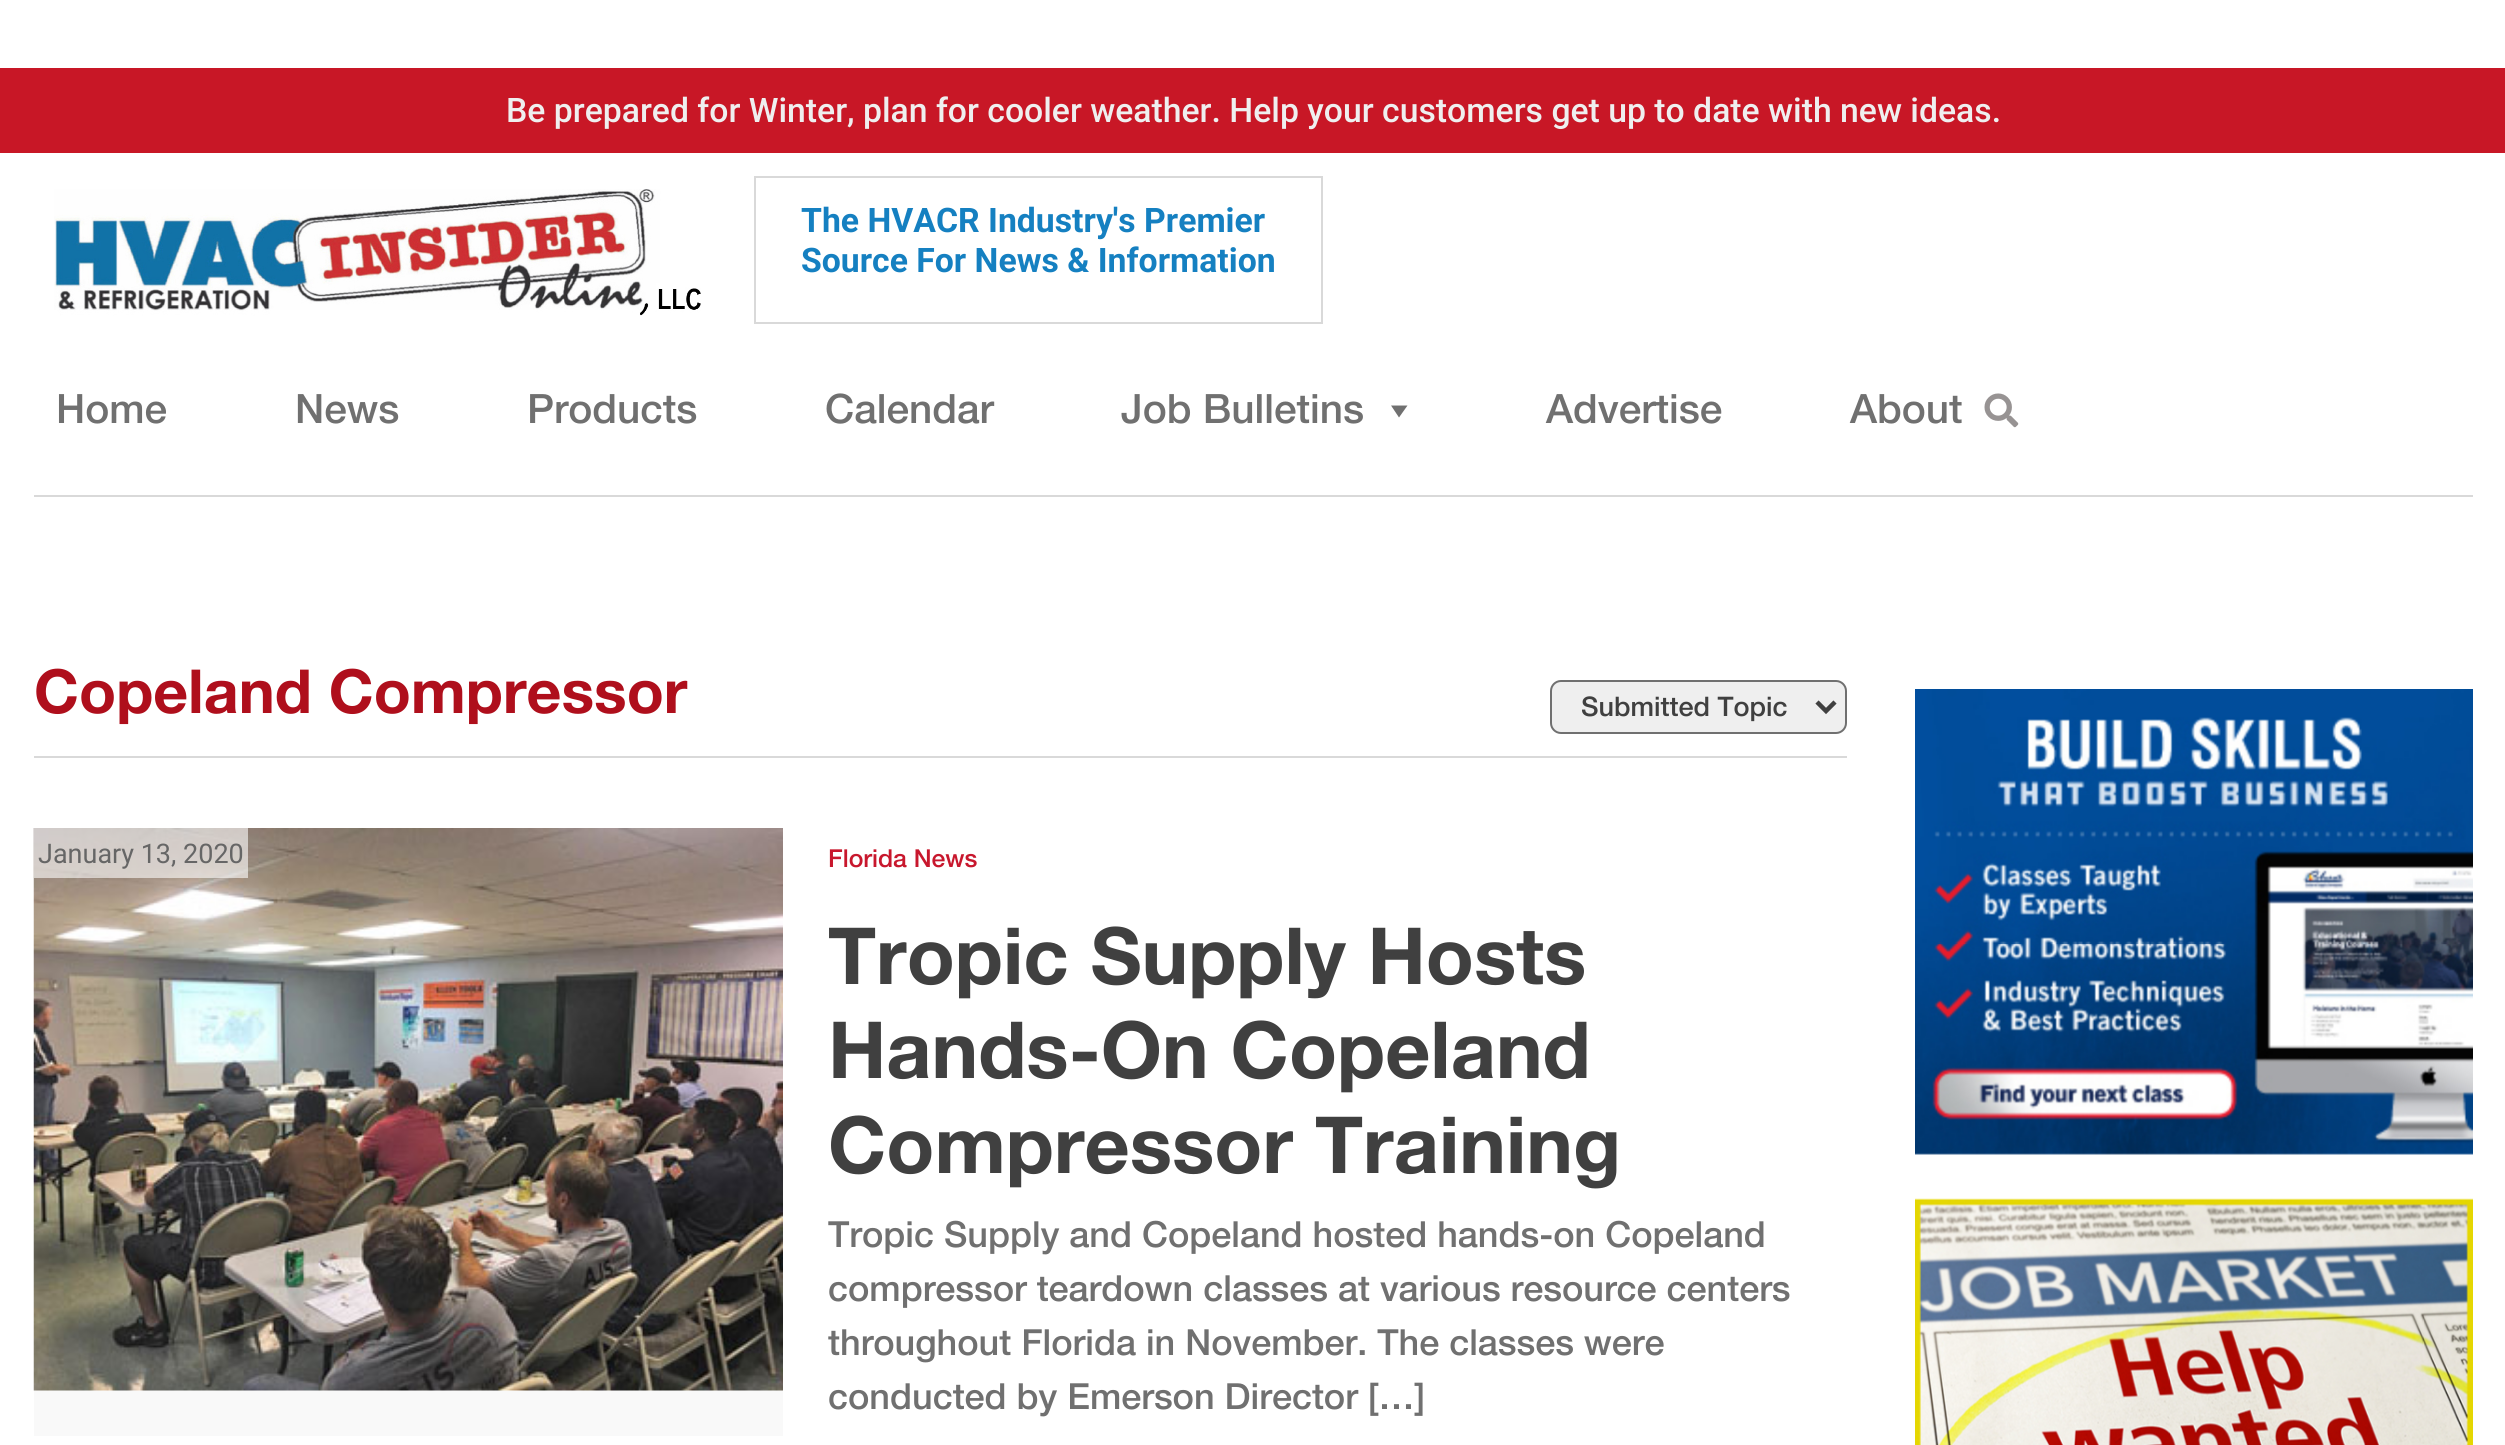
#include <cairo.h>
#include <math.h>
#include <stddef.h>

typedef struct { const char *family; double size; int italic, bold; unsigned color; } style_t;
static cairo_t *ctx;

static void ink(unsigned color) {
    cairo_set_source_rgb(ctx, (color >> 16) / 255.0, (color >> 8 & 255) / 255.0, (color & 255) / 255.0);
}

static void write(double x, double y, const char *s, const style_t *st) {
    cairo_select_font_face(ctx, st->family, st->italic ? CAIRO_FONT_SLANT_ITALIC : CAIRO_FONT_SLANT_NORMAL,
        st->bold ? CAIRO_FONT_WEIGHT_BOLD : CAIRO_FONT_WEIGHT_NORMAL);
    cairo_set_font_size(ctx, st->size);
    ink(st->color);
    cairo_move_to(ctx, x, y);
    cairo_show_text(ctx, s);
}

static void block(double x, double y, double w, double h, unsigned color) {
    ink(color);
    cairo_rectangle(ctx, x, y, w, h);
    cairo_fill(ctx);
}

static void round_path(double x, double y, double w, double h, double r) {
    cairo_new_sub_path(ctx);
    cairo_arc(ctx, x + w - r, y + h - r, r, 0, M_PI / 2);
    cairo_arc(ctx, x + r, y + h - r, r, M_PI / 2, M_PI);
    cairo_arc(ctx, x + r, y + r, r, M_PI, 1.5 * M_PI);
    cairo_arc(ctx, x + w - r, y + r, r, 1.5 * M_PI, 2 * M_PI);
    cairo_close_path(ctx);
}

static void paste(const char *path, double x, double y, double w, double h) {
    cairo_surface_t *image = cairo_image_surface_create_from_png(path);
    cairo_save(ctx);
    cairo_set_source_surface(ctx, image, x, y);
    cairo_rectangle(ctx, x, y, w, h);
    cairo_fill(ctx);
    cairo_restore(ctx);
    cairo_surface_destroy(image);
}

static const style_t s1 = {"Roboto Medium", 33.75, 0, 0, 0xefefef};
static const style_t s2 = {"Roboto", 33.75, 0, 1, 0x1580c1};
static const style_t s3 = {"Helvetica Neue Medium", 40.5, 0, 0, 0x707070};
static const style_t s4 = {"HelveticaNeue", 60.75, 0, 1, 0xaf0f1c};
static const style_t s5 = {"Helvetica Neue Medium", 27, 0, 0, 0x404040};
static const style_t s6 = {"Roboto", 27, 0, 0, 0x666666};
static const style_t s7 = {"Helvetica Neue Medium", 24.75, 0, 0, 0xc8172d};
static const style_t s8 = {"HelveticaNeue", 78.75, 0, 1, 0x404040};
static const style_t s9 = {"Helvetica Neue Medium", 36, 0, 0, 0x707070};

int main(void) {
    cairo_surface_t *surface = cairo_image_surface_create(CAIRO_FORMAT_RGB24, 2505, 1445);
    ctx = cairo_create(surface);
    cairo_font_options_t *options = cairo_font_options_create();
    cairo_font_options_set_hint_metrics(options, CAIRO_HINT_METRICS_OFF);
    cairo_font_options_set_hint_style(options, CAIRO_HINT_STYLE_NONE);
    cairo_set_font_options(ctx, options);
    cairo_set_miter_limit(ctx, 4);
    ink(0xffffff);
    cairo_paint(ctx);
    block(0, 68, 2505, 85, 0xc81726);
    write(506, 122, "Be prepared for Winter, plan for cooler weather. Help your customers get up to date with new ideas.", &s1);
    paste("pic1.png", 54, 189, 647, 127);
    cairo_rectangle(ctx, 755, 177, 567, 146);
    ink(0xd9d9d9);
    cairo_stroke(ctx);
    write(801, 232, "The HVACR Industry's Premier", &s2);
    write(801, 272, "Source For News & Information", &s2);
    block(34, 495, 2439, 2, 0xd9d9d9);
    write(56, 423, "Home", &s3);
    write(295, 423, "News", &s3);
    write(527, 423, "Products", &s3);
    write(825, 423, "Calendar", &s3);
    write(1121, 423, "Job Bulletins", &s3);
    cairo_new_path(ctx);
    cairo_move_to(ctx, 1407.5, 405.5);
    cairo_line_to(ctx, 1399, 417.5);
    cairo_line_to(ctx, 1391, 405.5);
    cairo_close_path(ctx);
    cairo_fill(ctx);
    write(1546, 423, "Advertise", &s3);
    write(1850, 423, "About", &s3);
    paste("pic2.png", 1984, 393, 35, 35);
    block(34, 756, 1813, 2, 0xd9d9d9);
    write(34, 713, "Copeland Compressor", &s4);
    ink(0xefefef);
    round_path(1551, 681, 295, 52, 10);
    cairo_fill_preserve(ctx);
    ink(0x707070);
    cairo_stroke(ctx);
    cairo_new_path(ctx);
    cairo_move_to(ctx, 1817, 702);
    cairo_line_to(ctx, 1826, 711);
    cairo_line_to(ctx, 1835, 702);
    ink(0x404040);
    cairo_set_line_width(ctx, 4.5);
    cairo_stroke(ctx);
    cairo_save(ctx);
    cairo_rectangle(ctx, 1582, 689, 207, 36);
    cairo_clip(ctx);
    write(1581, 716, "Submitted Topic", &s5);
    cairo_restore(ctx);
    block(34, 1390, 749, 46, 0xf9f9f9);
    paste("pic3.png", 33, 828, 750, 563);
    cairo_set_source_rgba(ctx, 1, 1, 1, 0.59);
    cairo_rectangle(ctx, 34, 828, 214, 50);
    cairo_fill(ctx);
    write(38, 863, "January 13, 2020", &s6);
    write(828, 867, "Florida News", &s7);
    write(828, 984, "Tropic Supply Hosts", &s8);
    write(828, 1078, "Hands-On Copeland", &s8);
    write(828, 1173, "Compressor Training", &s8);
    write(828, 1247, "Tropic Supply and Copeland hosted hands-on Copeland", &s9);
    write(828, 1301, "compressor teardown classes at various resource centers", &s9);
    write(828, 1355, "throughout Florida in November. The classes were", &s9);
    write(828, 1409, "conducted by Emerson Director […]", &s9);
    paste("pic4.png", 1915, 689, 558, 466);
    paste("pic5.png", 1915, 1198, 558, 247);
    cairo_surface_write_to_png(surface, "screenshot.png");
    cairo_font_options_destroy(options);
    cairo_destroy(ctx);
    cairo_surface_destroy(surface);
    return 0;
}
